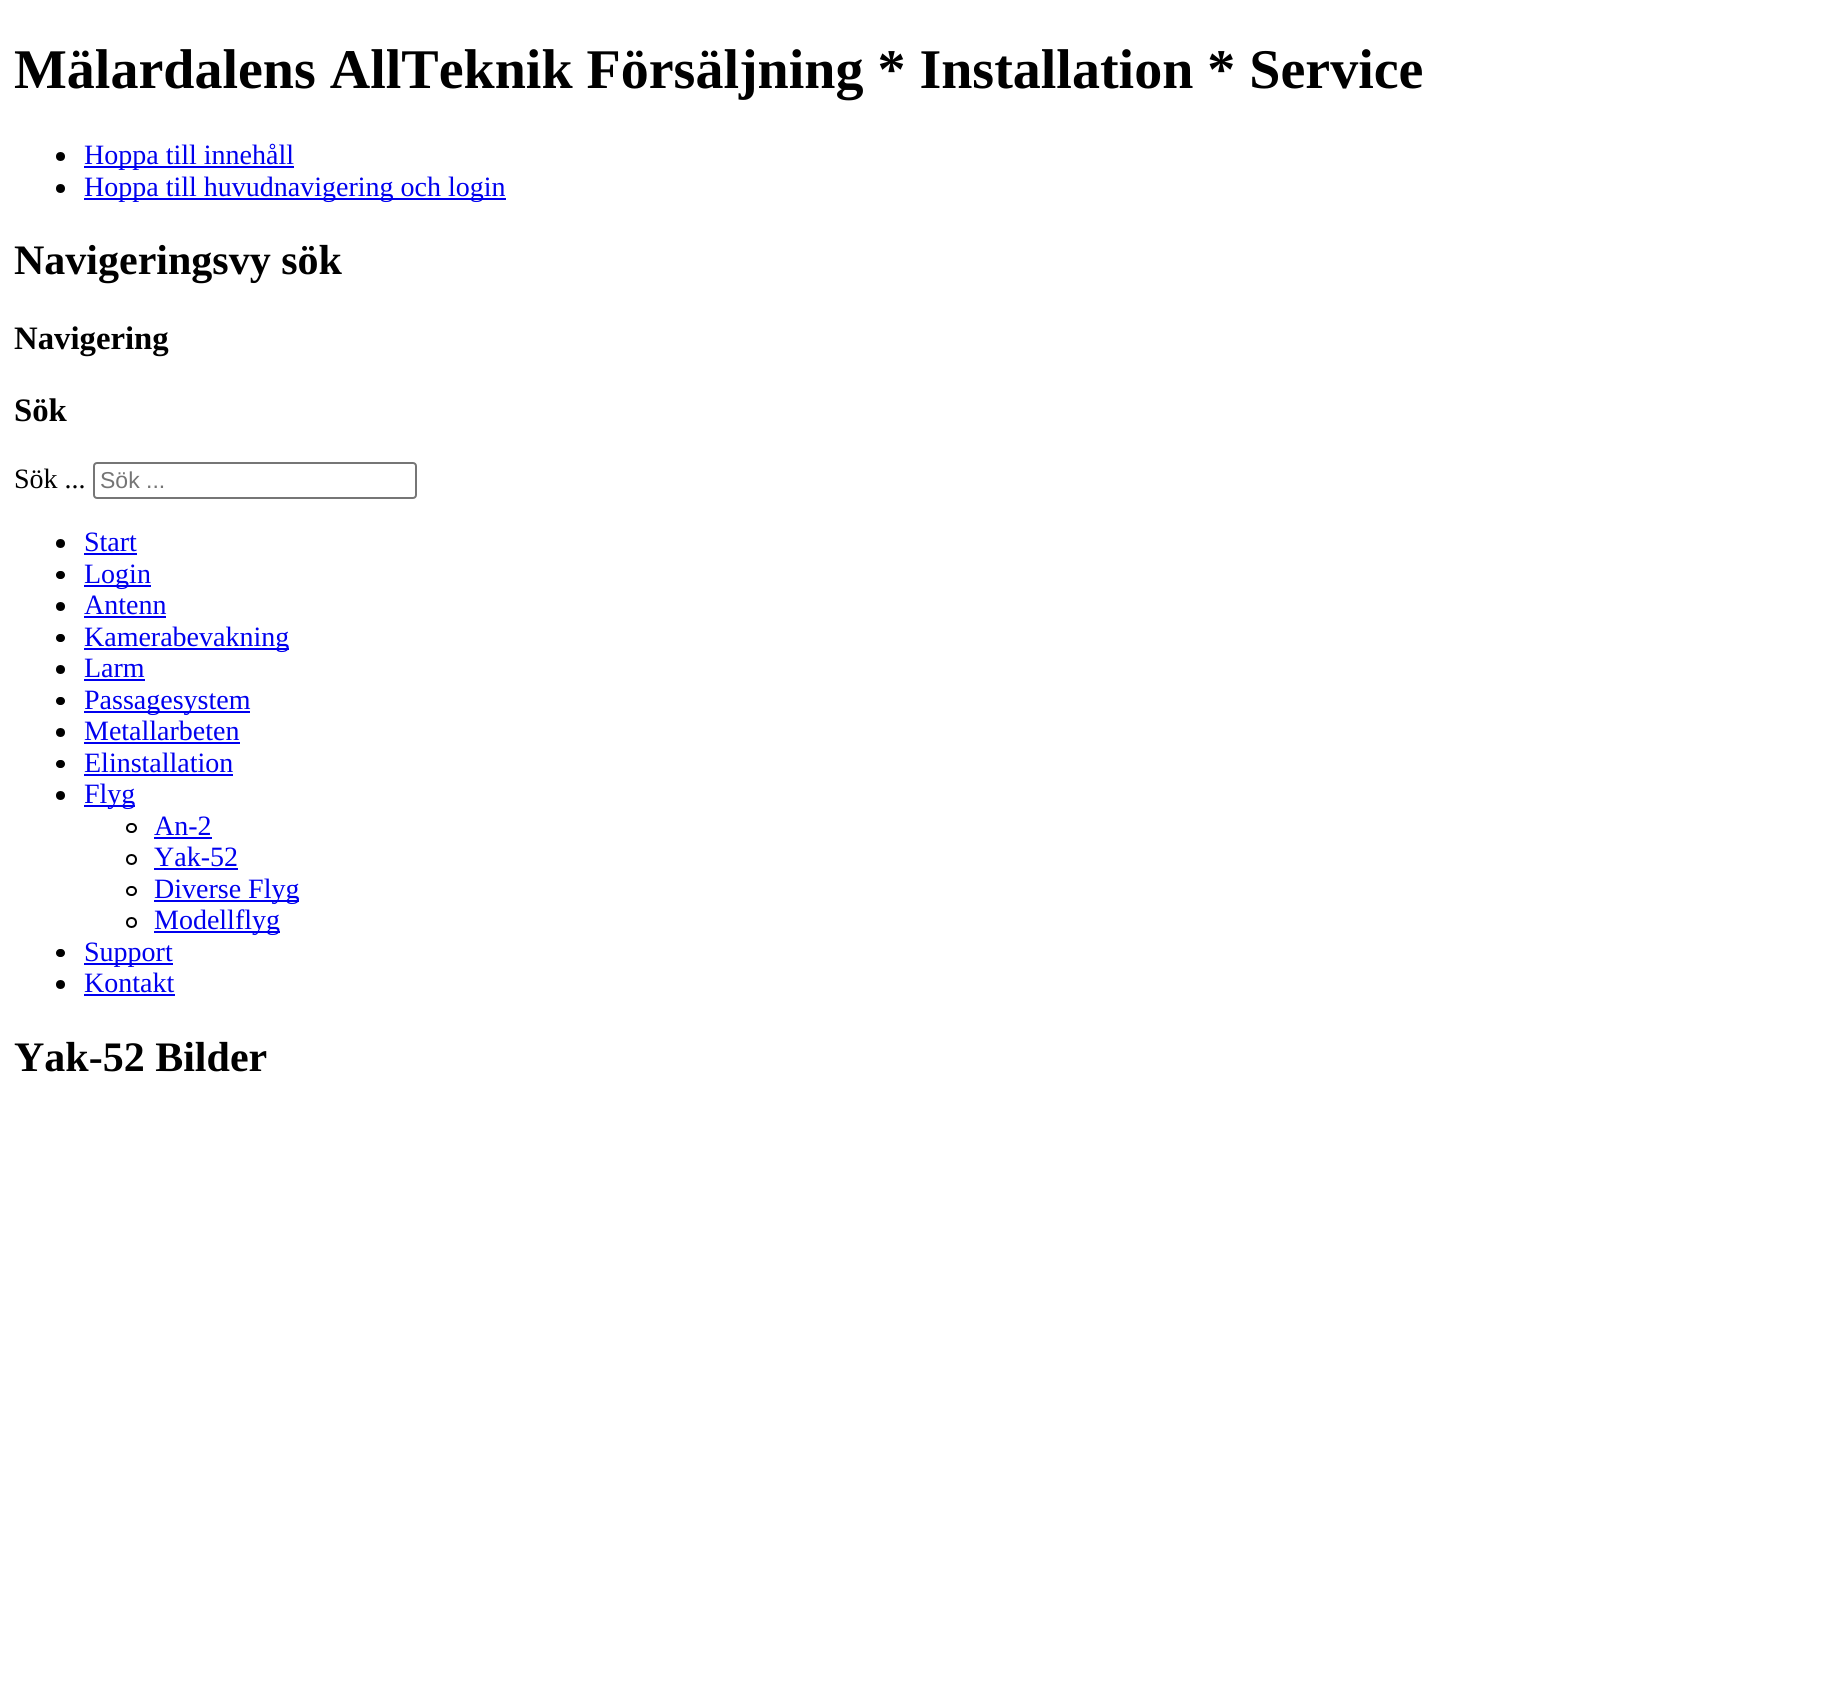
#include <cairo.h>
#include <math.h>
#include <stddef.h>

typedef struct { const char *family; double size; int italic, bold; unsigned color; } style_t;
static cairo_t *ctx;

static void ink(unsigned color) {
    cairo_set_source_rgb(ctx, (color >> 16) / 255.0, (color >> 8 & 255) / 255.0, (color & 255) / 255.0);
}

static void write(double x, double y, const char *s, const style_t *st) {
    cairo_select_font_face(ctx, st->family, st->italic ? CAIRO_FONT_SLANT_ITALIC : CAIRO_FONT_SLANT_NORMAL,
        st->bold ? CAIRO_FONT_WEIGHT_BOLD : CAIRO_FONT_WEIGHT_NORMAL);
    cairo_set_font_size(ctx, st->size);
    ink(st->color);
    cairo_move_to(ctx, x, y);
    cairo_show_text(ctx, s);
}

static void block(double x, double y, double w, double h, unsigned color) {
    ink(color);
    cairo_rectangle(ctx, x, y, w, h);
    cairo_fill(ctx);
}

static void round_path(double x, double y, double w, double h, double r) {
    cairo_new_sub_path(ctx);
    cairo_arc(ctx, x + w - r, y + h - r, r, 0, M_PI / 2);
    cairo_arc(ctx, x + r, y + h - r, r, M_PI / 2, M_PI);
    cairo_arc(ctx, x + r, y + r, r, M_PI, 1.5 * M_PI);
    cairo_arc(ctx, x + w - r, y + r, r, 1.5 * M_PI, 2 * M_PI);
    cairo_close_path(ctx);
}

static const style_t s1 = {"Liberation Serif", 56, 0, 1, 0x000000};
static const style_t s2 = {"Liberation Serif", 28, 0, 0, 0x0000ee};
static const style_t s3 = {"Liberation Serif", 42, 0, 1, 0x000000};
static const style_t s4 = {"Liberation Serif", 32.75, 0, 1, 0x000000};
static const style_t s5 = {"Liberation Serif", 28, 0, 0, 0x000000};
static const style_t s6 = {"Liberation Sans", 23, 0, 0, 0x757575};

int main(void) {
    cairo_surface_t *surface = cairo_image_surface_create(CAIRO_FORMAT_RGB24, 1829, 1706);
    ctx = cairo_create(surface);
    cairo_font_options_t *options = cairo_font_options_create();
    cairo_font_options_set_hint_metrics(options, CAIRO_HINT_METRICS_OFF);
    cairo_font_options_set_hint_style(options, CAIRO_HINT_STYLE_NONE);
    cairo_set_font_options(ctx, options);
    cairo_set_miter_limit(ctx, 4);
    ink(0xffffff);
    cairo_paint(ctx);
    write(14, 88, "Mälardalens AllTeknik Försäljning * Installation * Service", &s1);
    cairo_new_path(ctx);
    cairo_arc(ctx, 60.5, 156.5, 4.5, 0, 2 * M_PI);
    cairo_fill(ctx);
    block(84, 166, 210, 2, 0x0000ee);
    write(84, 164, "Hoppa till innehåll", &s2);
    ink(0x000000);
    cairo_new_path(ctx);
    cairo_arc(ctx, 60.5, 188.5, 4.5, 0, 2 * M_PI);
    cairo_fill(ctx);
    block(84, 198, 422, 2, 0x0000ee);
    write(84, 196, "Hoppa till huvudnavigering och login", &s2);
    write(14, 274, "Navigeringsvy sök", &s3);
    write(14, 349, "Navigering", &s4);
    write(14, 421, "Sök", &s4);
    write(14, 488, "Sök ...", &s5);
    round_path(94, 463, 322, 35, 3);
    ink(0x767676);
    cairo_stroke(ctx);
    write(100, 488, "Sök ...", &s6);
    ink(0x000000);
    cairo_new_path(ctx);
    cairo_arc(ctx, 60.5, 543.5, 4.5, 0, 2 * M_PI);
    cairo_fill(ctx);
    write(84, 551, "Start", &s2);
    block(84, 553, 53, 2, 0x0000ee);
    ink(0x000000);
    round_path(56, 571, 9, 8, 4);
    cairo_fill(ctx);
    block(84, 585, 67, 2, 0x0000ee);
    write(84, 583, "Login", &s2);
    ink(0x000000);
    cairo_new_path(ctx);
    cairo_arc(ctx, 60.5, 606.5, 4.5, 0, 2 * M_PI);
    cairo_fill(ctx);
    write(84, 614, "Antenn", &s2);
    block(84, 616, 82, 2, 0x0000ee);
    ink(0x000000);
    round_path(56, 634, 9, 8, 4);
    cairo_fill(ctx);
    block(84, 648, 205, 2, 0x0000ee);
    write(84, 646, "Kamerabevakning", &s2);
    ink(0x000000);
    cairo_new_path(ctx);
    cairo_arc(ctx, 60.5, 669.5, 4.5, 0, 2 * M_PI);
    cairo_fill(ctx);
    write(84, 677, "Larm", &s2);
    block(84, 679, 61, 2, 0x0000ee);
    ink(0x000000);
    round_path(56, 697, 9, 8, 4);
    cairo_fill(ctx);
    block(84, 711, 166, 2, 0x0000ee);
    write(84, 709, "Passagesystem", &s2);
    ink(0x000000);
    cairo_new_path(ctx);
    cairo_arc(ctx, 60.5, 732.5, 4.5, 0, 2 * M_PI);
    cairo_fill(ctx);
    write(84, 740, "Metallarbeten", &s2);
    block(84, 742, 156, 2, 0x0000ee);
    ink(0x000000);
    round_path(56, 760, 9, 8, 4);
    cairo_fill(ctx);
    write(84, 772, "Elinstallation", &s2);
    block(84, 774, 149, 2, 0x0000ee);
    ink(0x000000);
    cairo_new_path(ctx);
    cairo_arc(ctx, 60.5, 795.5, 4.5, 0, 2 * M_PI);
    cairo_fill(ctx);
    block(84, 805, 51, 2, 0x0000ee);
    write(84, 803, "Flyg", &s2);
    round_path(127, 824, 9, 8, 4);
    ink(0x000000);
    cairo_stroke(ctx);
    write(154, 835, "An-2", &s2);
    block(154, 837, 58, 2, 0x0000ee);
    cairo_new_path(ctx);
    cairo_arc(ctx, 131.5, 859.5, 4.5, 0, 2 * M_PI);
    ink(0x000000);
    cairo_stroke(ctx);
    write(154, 866, "Yak-52", &s2);
    block(154, 868, 84, 2, 0x0000ee);
    round_path(127, 887, 9, 8, 4);
    ink(0x000000);
    cairo_stroke(ctx);
    block(154, 900, 145, 2, 0x0000ee);
    write(154, 898, "Diverse Flyg", &s2);
    cairo_new_path(ctx);
    cairo_arc(ctx, 131.5, 922.5, 4.5, 0, 2 * M_PI);
    ink(0x000000);
    cairo_stroke(ctx);
    block(154, 931, 126, 2, 0x0000ee);
    write(154, 929, "Modellflyg", &s2);
    ink(0x000000);
    round_path(56, 949, 9, 8, 4);
    cairo_fill(ctx);
    block(84, 963, 89, 2, 0x0000ee);
    write(84, 961, "Support", &s2);
    ink(0x000000);
    cairo_new_path(ctx);
    cairo_arc(ctx, 60.5, 984.5, 4.5, 0, 2 * M_PI);
    cairo_fill(ctx);
    write(84, 992, "Kontakt", &s2);
    block(84, 994, 91, 2, 0x0000ee);
    write(14, 1071, "Yak-52 Bilder", &s3);
    cairo_surface_write_to_png(surface, "screenshot.png");
    cairo_font_options_destroy(options);
    cairo_destroy(ctx);
    cairo_surface_destroy(surface);
    return 0;
}
